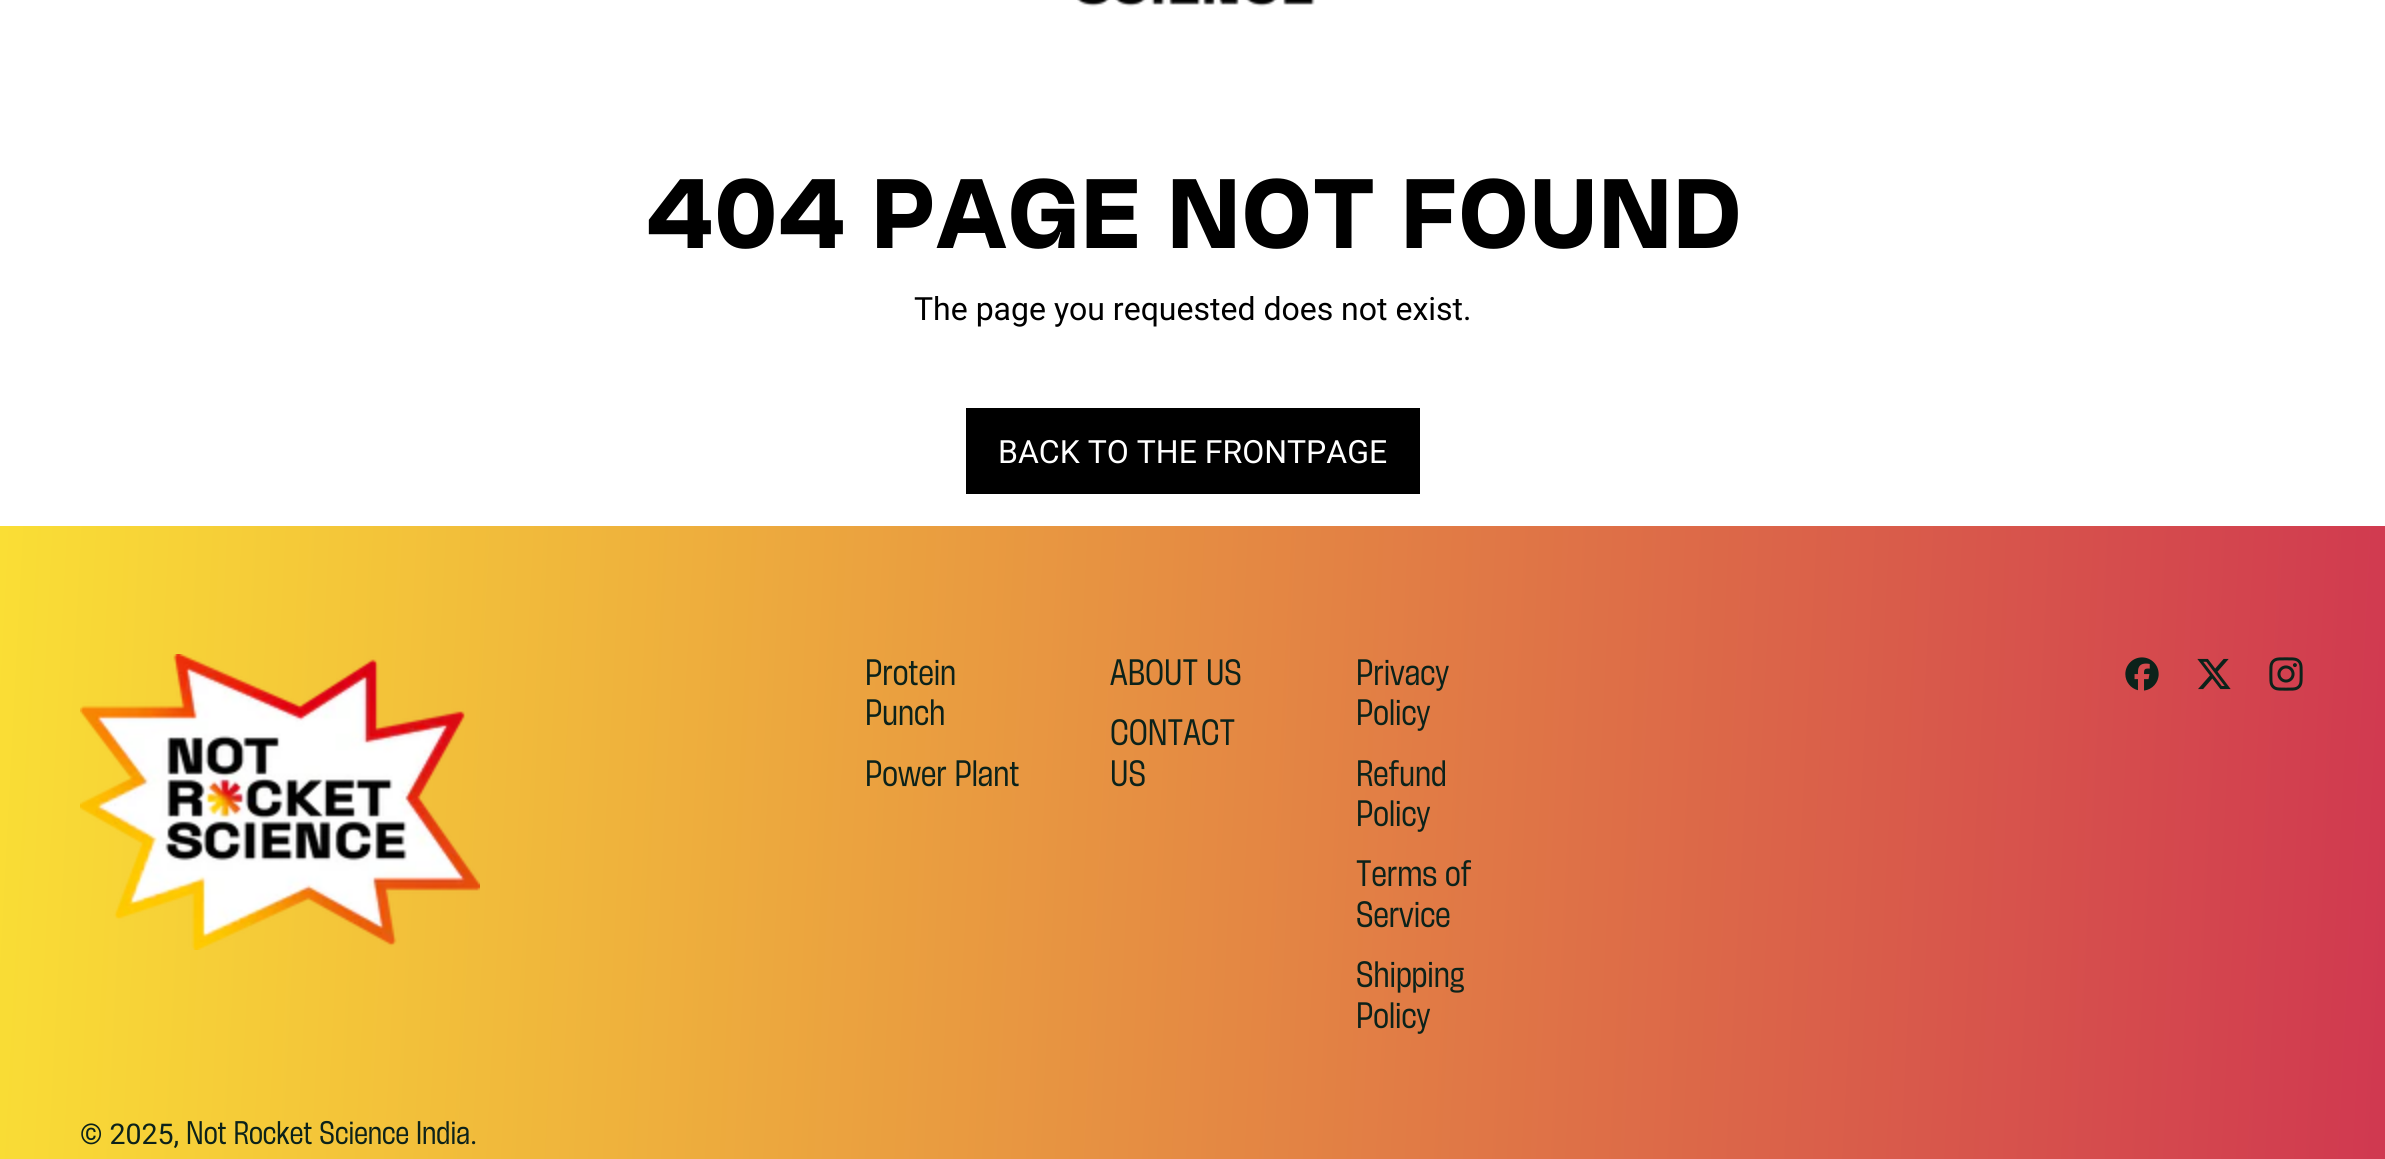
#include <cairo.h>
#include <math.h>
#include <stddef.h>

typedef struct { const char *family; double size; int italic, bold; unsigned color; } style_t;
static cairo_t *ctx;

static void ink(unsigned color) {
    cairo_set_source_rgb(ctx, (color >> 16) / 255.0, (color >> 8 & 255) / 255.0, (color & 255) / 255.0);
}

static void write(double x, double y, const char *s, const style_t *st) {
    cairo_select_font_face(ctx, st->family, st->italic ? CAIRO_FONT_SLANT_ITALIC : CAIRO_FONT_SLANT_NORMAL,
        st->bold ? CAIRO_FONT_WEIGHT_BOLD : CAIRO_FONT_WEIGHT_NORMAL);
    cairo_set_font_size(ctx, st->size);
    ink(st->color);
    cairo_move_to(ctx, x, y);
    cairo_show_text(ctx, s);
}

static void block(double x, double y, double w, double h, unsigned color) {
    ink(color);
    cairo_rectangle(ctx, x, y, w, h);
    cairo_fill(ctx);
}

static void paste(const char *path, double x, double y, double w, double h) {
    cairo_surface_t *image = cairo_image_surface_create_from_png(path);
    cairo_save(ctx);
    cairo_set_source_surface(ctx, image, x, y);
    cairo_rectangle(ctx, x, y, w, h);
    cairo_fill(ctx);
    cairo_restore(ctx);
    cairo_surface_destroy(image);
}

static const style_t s1 = {"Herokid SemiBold", 85.5, 0, 0, 0x000000};
static const style_t s2 = {"Roboto", 32, 0, 0, 0x000000};
static const style_t s3 = {"Roboto", 32, 0, 0, 0xffffff};
static const style_t s4 = {"Herokid", 32, 0, 0, 0x0c221a};
static const style_t s5 = {"Roboto", 28.5, 0, 0, 0x0c221a};
static const style_t s6 = {"Herokid", 28.5, 0, 0, 0x0c221a};

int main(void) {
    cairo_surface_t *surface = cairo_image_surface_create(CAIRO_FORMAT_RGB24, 2385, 1159);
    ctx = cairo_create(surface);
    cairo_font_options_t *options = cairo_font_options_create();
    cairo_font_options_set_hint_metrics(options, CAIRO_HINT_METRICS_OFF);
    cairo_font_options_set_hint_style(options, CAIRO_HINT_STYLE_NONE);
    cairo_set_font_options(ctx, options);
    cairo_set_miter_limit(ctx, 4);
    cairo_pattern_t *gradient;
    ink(0xffffff);
    cairo_paint(ctx);
    paste("pic1.png", 1077, 0, 238, 7);
    write(646, 248, "404 PAGE NOT FOUND", &s1);
    write(914, 320, "The page you requested does not exist.", &s2);
    block(966, 408, 454, 86, 0x000000);
    write(998, 463, "BACK TO THE FRONTPAGE", &s3);
    gradient = cairo_pattern_create_linear(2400, 919, -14, 793);
    cairo_pattern_add_color_stop_rgba(gradient, 0, 0.816, 0.22, 0.314, 1);
    cairo_pattern_add_color_stop_rgba(gradient, 1, 0.98, 0.871, 0.208, 1);
    cairo_set_source(ctx, gradient);
    cairo_pattern_destroy(gradient);
    cairo_rectangle(ctx, 0, 526, 2385, 633);
    cairo_fill(ctx);
    paste("pic2.png", 80, 654, 400, 296);
    write(865, 685, "Protein", &s4);
    write(865, 725, "Punch", &s4);
    write(865, 786, "Power Plant", &s4);
    write(1110, 685, "ABOUT US", &s4);
    write(1110, 745, "CONTACT", &s4);
    write(1110, 786, "US", &s4);
    write(1356, 685, "Privacy", &s4);
    write(1356, 725, "Policy", &s4);
    write(1356, 786, "Refund", &s4);
    write(1356, 826, "Policy", &s4);
    write(1356, 886, "Terms of", &s4);
    write(1356, 927, "Service", &s4);
    write(1356, 987, "Shipping", &s4);
    write(1356, 1028, "Policy", &s4);
    paste("pic3.png", 2125, 657, 34, 34);
    paste("pic4.png", 2197, 658, 34, 32);
    paste("pic5.png", 2269, 657, 34, 34);
    write(80, 1144, "© 2025,", &s5);
    write(186, 1144, "Not Rocket Science India", &s6);
    write(470, 1144, ".", &s5);
    cairo_surface_write_to_png(surface, "screenshot.png");
    cairo_font_options_destroy(options);
    cairo_destroy(ctx);
    cairo_surface_destroy(surface);
    return 0;
}
